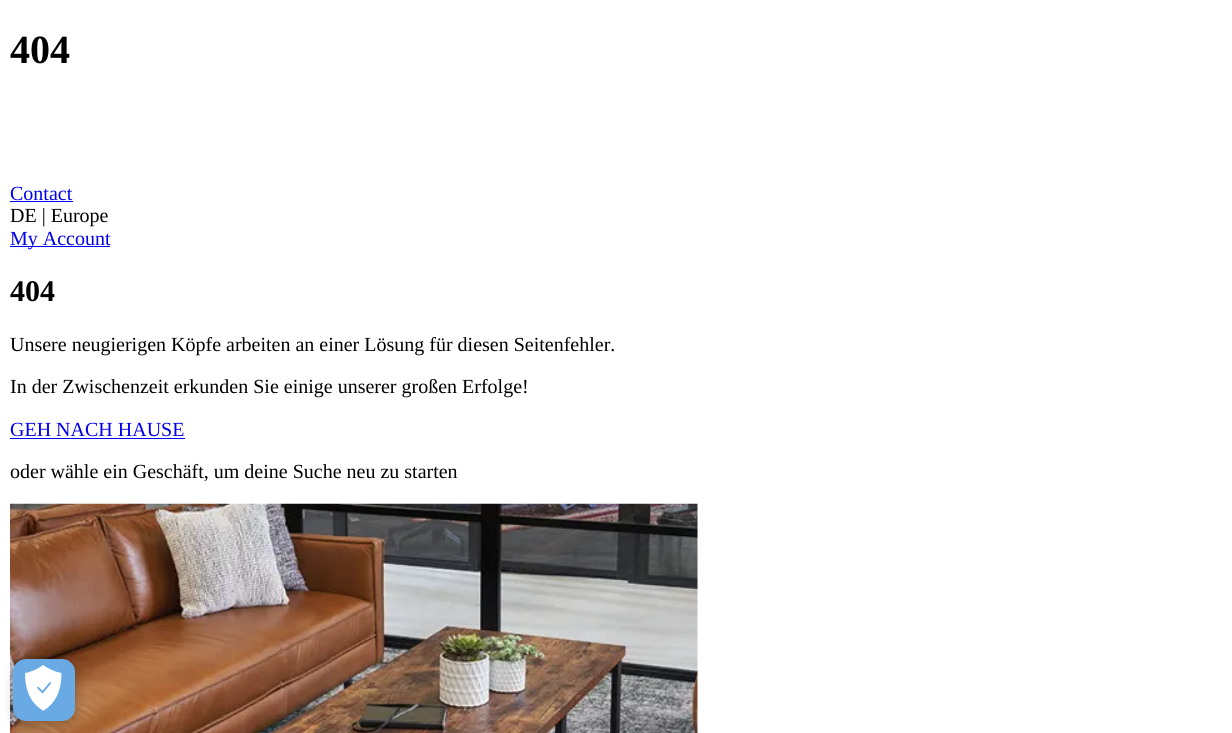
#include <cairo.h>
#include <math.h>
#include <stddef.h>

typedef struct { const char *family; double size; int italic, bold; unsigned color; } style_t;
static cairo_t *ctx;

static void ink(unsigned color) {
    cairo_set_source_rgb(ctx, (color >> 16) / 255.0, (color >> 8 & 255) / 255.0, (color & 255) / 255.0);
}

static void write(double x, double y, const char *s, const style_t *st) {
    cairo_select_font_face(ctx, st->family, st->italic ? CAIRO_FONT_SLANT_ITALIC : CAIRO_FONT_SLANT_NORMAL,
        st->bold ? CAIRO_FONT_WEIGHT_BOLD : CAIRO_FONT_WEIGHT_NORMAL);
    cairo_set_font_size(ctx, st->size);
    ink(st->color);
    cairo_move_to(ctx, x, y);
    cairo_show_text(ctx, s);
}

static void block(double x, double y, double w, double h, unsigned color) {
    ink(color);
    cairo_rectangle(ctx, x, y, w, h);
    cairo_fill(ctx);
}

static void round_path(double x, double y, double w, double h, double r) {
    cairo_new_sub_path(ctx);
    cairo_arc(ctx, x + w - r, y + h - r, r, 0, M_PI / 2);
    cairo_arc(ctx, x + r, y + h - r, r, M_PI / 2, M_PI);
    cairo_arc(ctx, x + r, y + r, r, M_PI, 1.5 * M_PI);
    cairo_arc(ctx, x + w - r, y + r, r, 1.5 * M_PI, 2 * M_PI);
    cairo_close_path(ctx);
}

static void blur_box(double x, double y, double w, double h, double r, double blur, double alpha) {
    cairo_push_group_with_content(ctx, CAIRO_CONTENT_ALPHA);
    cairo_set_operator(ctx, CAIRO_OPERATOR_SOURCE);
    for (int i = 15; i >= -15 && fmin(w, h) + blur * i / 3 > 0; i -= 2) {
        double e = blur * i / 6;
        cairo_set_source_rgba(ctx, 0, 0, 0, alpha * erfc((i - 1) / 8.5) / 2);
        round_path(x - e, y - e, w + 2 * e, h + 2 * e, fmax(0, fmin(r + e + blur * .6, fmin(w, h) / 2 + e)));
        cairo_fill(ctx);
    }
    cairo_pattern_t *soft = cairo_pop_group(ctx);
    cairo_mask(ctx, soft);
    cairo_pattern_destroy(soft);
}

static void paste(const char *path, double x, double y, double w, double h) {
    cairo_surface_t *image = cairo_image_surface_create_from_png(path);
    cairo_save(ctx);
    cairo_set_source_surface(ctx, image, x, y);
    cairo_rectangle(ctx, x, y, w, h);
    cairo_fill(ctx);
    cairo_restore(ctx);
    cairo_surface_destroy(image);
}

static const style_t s1 = {"Liberation Serif", 40, 0, 1, 0x000000};
static const style_t s2 = {"Liberation Serif", 20, 0, 0, 0x0000ee};
static const style_t s3 = {"Liberation Serif", 20, 0, 0, 0x000000};
static const style_t s4 = {"Liberation Serif", 30, 0, 1, 0x000000};

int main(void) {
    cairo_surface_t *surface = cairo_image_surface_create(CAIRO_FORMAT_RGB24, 1232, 733);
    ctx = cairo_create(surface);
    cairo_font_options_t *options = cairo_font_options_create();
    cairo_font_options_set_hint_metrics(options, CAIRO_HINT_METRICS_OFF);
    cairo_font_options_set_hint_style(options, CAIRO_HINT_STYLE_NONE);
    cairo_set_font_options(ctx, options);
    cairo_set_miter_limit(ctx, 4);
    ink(0xffffff);
    cairo_paint(ctx);
    write(10, 63, "404", &s1);
    write(10, 200, "Contact", &s2);
    block(10, 201, 63, 1, 0x0000ee);
    write(10, 222, "DE | Europe", &s3);
    block(10, 246, 100, 1, 0x0000ee);
    write(10, 245, "My Account", &s2);
    write(10, 301, "404", &s4);
    write(10, 351, "Unsere neugierigen Köpfe arbeiten an einer Lösung für diesen Seitenfehler.", &s3);
    write(10, 393, "In der Zwischenzeit erkunden Sie einige unserer großen Erfolge!", &s3);
    write(10, 436, "GEH NACH HAUSE", &s2);
    block(10, 438, 175, 1, 0x0000ee);
    write(10, 478, "oder wähle ein Geschäft, um deine Suche neu zu starten", &s3);
    paste("pic1.png", 10, 503, 688, 230);
    ink(0x000000);
    blur_box(13, 664, 62, 62, 13, 5, 0.2);
    ink(0x6aaae4);
    round_path(13, 659, 62, 62, 13);
    cairo_fill(ctx);
    paste("pic2.png", 25, 665, 37, 46);
    cairo_surface_write_to_png(surface, "screenshot.png");
    cairo_font_options_destroy(options);
    cairo_destroy(ctx);
    cairo_surface_destroy(surface);
    return 0;
}
